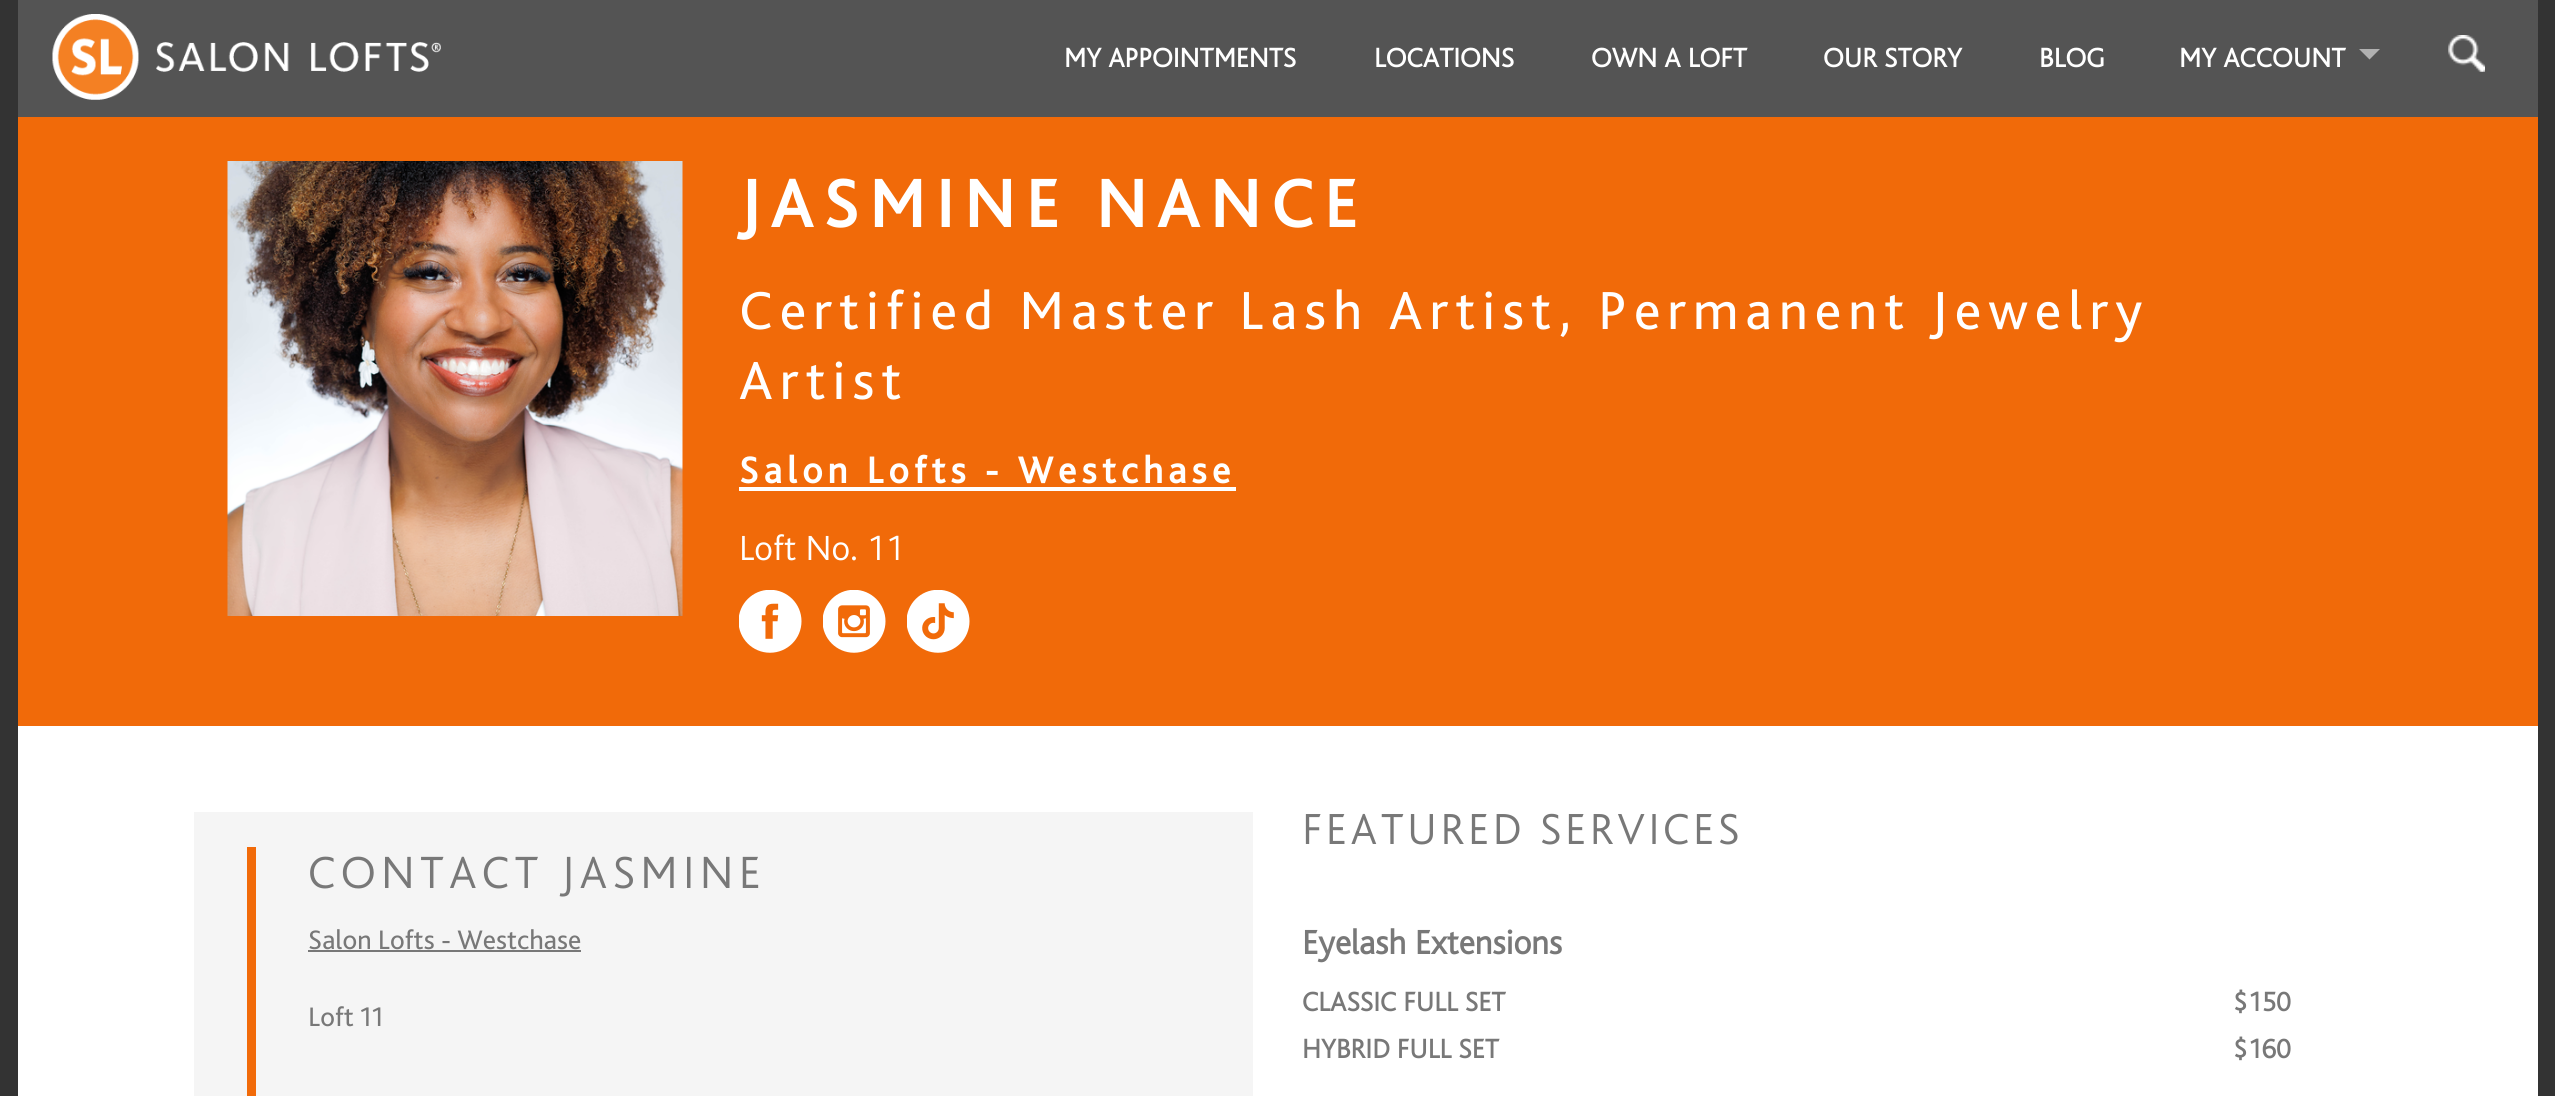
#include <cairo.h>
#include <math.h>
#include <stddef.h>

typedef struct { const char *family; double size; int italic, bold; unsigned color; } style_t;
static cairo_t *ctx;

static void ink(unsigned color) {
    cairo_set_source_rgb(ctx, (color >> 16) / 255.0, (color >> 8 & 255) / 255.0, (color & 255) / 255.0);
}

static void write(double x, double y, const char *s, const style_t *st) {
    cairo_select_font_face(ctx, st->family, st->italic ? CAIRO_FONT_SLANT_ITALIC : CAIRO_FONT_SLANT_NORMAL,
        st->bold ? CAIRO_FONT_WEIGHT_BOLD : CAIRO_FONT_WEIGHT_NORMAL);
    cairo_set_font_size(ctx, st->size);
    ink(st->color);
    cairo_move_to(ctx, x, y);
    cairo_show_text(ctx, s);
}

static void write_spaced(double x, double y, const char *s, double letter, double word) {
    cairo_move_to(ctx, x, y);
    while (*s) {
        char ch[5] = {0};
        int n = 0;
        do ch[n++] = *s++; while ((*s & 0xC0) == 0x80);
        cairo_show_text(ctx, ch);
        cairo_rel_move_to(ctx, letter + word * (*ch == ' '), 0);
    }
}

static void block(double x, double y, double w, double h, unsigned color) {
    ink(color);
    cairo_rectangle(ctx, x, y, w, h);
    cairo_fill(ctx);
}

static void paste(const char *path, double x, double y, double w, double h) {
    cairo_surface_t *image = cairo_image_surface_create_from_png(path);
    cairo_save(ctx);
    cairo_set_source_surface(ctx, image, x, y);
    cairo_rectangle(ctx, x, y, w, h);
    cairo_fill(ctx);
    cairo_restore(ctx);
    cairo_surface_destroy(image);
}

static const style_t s1 = {"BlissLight", 28, 0, 1, 0xffffff};
static const style_t s2 = {"BlissLight ExtraLight", 36.5, 0, 0, 0xffffff};
static const style_t s3 = {"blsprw", 28, 0, 0, 0x787878};
static const style_t s4 = {"BlissLight", 35, 0, 1, 0x787878};
static const style_t s5 = {"BlissLight", 28, 0, 1, 0x787878};

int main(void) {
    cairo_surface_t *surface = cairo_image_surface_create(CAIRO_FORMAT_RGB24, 2555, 1096);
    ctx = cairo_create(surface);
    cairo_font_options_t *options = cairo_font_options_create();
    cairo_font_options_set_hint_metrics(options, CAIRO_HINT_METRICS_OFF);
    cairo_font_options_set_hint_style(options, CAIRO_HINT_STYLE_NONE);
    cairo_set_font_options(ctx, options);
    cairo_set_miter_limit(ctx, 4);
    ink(0x333333);
    cairo_paint(ctx);
    block(18, 0, 2520, 117, 0x545454);
    paste("pic1.png", 52, 14, 389, 86);
    write(1064, 67, "MY APPOINTMENTS", &s1);
    write(1374, 67, "LOCATIONS", &s1);
    write(1591, 67, "OWN A LOFT", &s1);
    write(1823, 67, "OUR STORY", &s1);
    write(2039, 67, "BLOG", &s1);
    write(2179, 67, "MY ACCOUNT", &s1);
    ink(0xb1b1b1);
    cairo_new_path(ctx);
    cairo_move_to(ctx, 2359, 49);
    cairo_line_to(ctx, 2380, 49);
    cairo_line_to(ctx, 2369.5, 59.5);
    cairo_close_path(ctx);
    cairo_fill(ctx);
    paste("pic2.png", 2448, 35, 37, 37);
    block(18, 117, 2520, 609, 0xf16a09);
    paste("pic3.png", 227, 161, 456, 455);
    cairo_select_font_face(ctx, "blsprw", CAIRO_FONT_SLANT_NORMAL, CAIRO_FONT_WEIGHT_BOLD);
    cairo_set_font_size(ctx, 70);
    ink(0xffffff);
    write_spaced(739, 227, "JASMINE NANCE", 10.5, 0);
    cairo_select_font_face(ctx, "blsprw", CAIRO_FONT_SLANT_NORMAL, CAIRO_FONT_WEIGHT_NORMAL);
    cairo_set_font_size(ctx, 56);
    write_spaced(739, 329, "Certified Master Lash Artist, Permanent Jewelry", 7, 0);
    write_spaced(739, 399, "Artist", 7, 0);
    cairo_select_font_face(ctx, "blsprw", CAIRO_FONT_SLANT_NORMAL, CAIRO_FONT_WEIGHT_BOLD);
    cairo_set_font_size(ctx, 38.5);
    write_spaced(739, 483, "Salon Lofts - Westchase", 5.25, 0);
    block(739, 487, 497, 4, 0xffffff);
    write(739, 560, "Loft No. 11", &s2);
    paste("pic4.png", 739, 590, 63, 63);
    paste("pic5.png", 823, 590, 63, 63);
    paste("pic6.png", 907, 590, 63, 63);
    block(18, 726, 2520, 370, 0xffffff);
    block(194, 812, 1059, 284, 0xf5f5f5);
    block(247, 847, 9, 249, 0xf16a09);
    cairo_set_font_size(ctx, 47.25);
    ink(0x787878);
    write_spaced(308, 888, "CONTACT JASMINE", 5.25, 0);
    write(308, 949, "Salon Lofts - Westchase", &s3);
    block(308, 950, 273, 2, 0x787878);
    write(308, 1026, "Loft 11", &s3);
    cairo_select_font_face(ctx, "BlissLight ExtraLight", CAIRO_FONT_SLANT_NORMAL, CAIRO_FONT_WEIGHT_NORMAL);
    cairo_set_font_size(ctx, 45.5);
    write_spaced(1302, 844, "FEATURED SERVICES", 3.5, 0);
    write(1302, 954, "Eyelash Extensions", &s4);
    write(1302, 1011, "CLASSIC FULL SET", &s5);
    write(2233, 1011, "$150", &s5);
    write(1302, 1058, "HYBRID FULL SET", &s5);
    write(2233, 1058, "$160", &s5);
    cairo_surface_write_to_png(surface, "screenshot.png");
    cairo_font_options_destroy(options);
    cairo_destroy(ctx);
    cairo_surface_destroy(surface);
    return 0;
}
